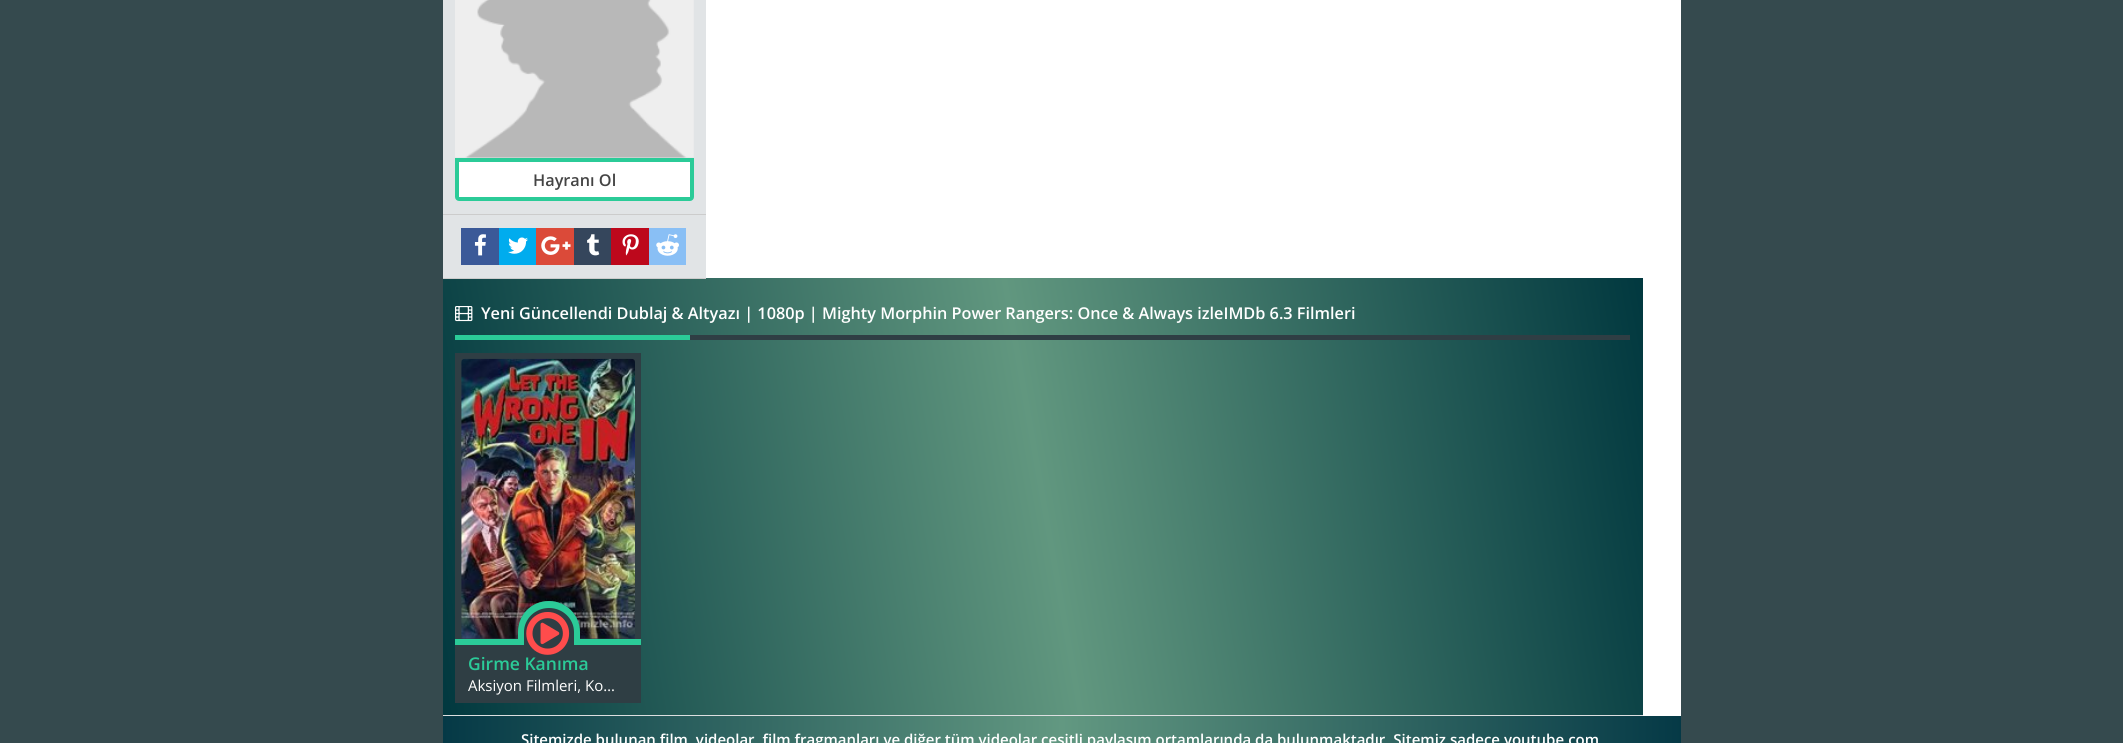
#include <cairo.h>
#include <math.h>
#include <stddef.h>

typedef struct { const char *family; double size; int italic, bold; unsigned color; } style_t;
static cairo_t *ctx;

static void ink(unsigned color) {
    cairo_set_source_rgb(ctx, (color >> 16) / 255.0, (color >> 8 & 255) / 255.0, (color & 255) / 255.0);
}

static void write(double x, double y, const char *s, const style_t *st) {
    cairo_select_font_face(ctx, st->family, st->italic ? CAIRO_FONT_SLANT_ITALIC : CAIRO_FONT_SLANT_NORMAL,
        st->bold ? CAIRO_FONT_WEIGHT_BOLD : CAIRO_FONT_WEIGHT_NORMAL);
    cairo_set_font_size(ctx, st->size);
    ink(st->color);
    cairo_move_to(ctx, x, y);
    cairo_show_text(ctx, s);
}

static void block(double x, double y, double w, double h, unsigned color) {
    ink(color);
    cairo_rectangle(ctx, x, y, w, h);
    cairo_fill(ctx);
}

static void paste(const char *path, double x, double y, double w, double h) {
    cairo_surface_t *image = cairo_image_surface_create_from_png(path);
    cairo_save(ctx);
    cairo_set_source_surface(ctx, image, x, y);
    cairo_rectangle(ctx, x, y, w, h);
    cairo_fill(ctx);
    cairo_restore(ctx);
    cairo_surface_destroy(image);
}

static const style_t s1 = {"Open Sans SemiBold", 16.25, 0, 0, 0x444444};
static const style_t s2 = {"Open Sans SemiBold", 16.25, 0, 0, 0xffffff};
static const style_t s3 = {"Open Sans SemiBold", 17.5, 0, 0, 0x2bcb98};
static const style_t s4 = {"Open Sans", 15, 0, 0, 0xffffff};
static const style_t s5 = {"Open Sans SemiBold", 15, 0, 0, 0xffffff};

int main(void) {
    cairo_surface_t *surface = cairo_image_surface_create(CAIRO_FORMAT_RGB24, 2123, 743);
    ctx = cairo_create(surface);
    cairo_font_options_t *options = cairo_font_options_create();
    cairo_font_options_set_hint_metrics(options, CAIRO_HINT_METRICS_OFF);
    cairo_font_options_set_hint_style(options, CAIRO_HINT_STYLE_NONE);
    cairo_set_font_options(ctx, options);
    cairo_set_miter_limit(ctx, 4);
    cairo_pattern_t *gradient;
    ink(0x354a4e);
    cairo_paint(ctx);
    block(706, 0, 975, 716, 0xffffff);
    block(443, 0, 263, 278, 0xe1e4e6);
    block(443, 214, 263, 1, 0xcccccc);
    paste("pic1.png", 455, 0, 239, 158);
    ink(0xffffff);
    cairo_new_path(ctx);
    cairo_move_to(ctx, 457, 160);
    cairo_line_to(ctx, 692, 160);
    cairo_line_to(ctx, 692, 197);
    cairo_curve_to(ctx, 692, 198, 691, 199, 690, 199);
    cairo_line_to(ctx, 459, 199);
    cairo_curve_to(ctx, 458, 199, 457, 198, 457, 197);
    cairo_close_path(ctx);
    cairo_fill_preserve(ctx);
    ink(0x2bcb98);
    cairo_set_line_width(ctx, 4);
    cairo_stroke(ctx);
    write(533, 186, "Hayranı Ol", &s1);
    gradient = cairo_pattern_create_linear(423, 605, 1662, 387);
    cairo_pattern_add_color_stop_rgba(gradient, 0, 0.004, 0.22, 0.247, 1);
    cairo_pattern_add_color_stop_rgba(gradient, 0.5, 0.38, 0.592, 0.498, 1);
    cairo_pattern_add_color_stop_rgba(gradient, 1, 0.004, 0.22, 0.247, 1);
    cairo_set_source(ctx, gradient);
    cairo_pattern_destroy(gradient);
    cairo_rectangle(ctx, 443, 278, 1200, 437);
    cairo_fill(ctx);
    block(443, 278, 263, 1, 0xcccccc);
    block(461, 228, 38, 37, 0x3b5998);
    paste("pic2.png", 474, 234, 12, 22);
    block(499, 228, 37, 37, 0x00acee);
    paste("pic3.png", 508, 237, 20, 17);
    block(536, 228, 38, 37, 0xdb4a39);
    paste("pic4.png", 541, 236, 30, 19);
    block(574, 228, 37, 37, 0x35465c);
    paste("pic5.png", 587, 234, 13, 22);
    block(611, 228, 38, 37, 0xbd081c);
    paste("pic6.png", 622, 234, 17, 22);
    block(649, 228, 37, 37, 0x89bff5);
    paste("pic7.png", 656, 234, 23, 22);
    block(443, 715, 1200, 1, 0xdcdfe0);
    block(690, 335, 940, 5, 0x2f3e44);
    paste("pic8.png", 455, 306, 18, 16);
    write(481, 319, "Yeni Güncellendi Dublaj & Altyazı | 1080p | Mighty Morphin Power Rangers: Once & Always izleIMDb 6.3 Filmleri", &s2);
    block(455, 335, 235, 5, 0x2bcb98);
    block(455, 353, 186, 286, 0x2f3e44);
    paste("pic9.png", 461, 358, 174, 281);
    block(455, 639, 186, 6, 0x2bcb98);
    ink(0x2f3e44);
    cairo_new_path(ctx);
    cairo_move_to(ctx, 549, 601);
    cairo_curve_to(ctx, 566, 601, 580, 615, 580, 632);
    cairo_line_to(ctx, 580, 645);
    cairo_line_to(ctx, 518, 645);
    cairo_line_to(ctx, 518, 632);
    cairo_curve_to(ctx, 518, 615, 532, 601, 549, 601);
    cairo_close_path(ctx);
    cairo_fill(ctx);
    cairo_save(ctx);
    cairo_rectangle(ctx, 518, 601, 62, 44);
    cairo_clip(ctx);
    ink(0x2bcb98);
    cairo_set_fill_rule(ctx, CAIRO_FILL_RULE_EVEN_ODD);
    cairo_new_path(ctx);
    cairo_move_to(ctx, 549, 601);
    cairo_curve_to(ctx, 566, 601, 580, 615, 580, 632);
    cairo_line_to(ctx, 580, 664);
    cairo_line_to(ctx, 518, 664);
    cairo_line_to(ctx, 518, 632);
    cairo_curve_to(ctx, 518, 615, 531, 601, 549, 601);
    cairo_close_path(ctx);
    cairo_move_to(ctx, 549, 608);
    cairo_curve_to(ctx, 563, 608, 574, 619, 574, 632);
    cairo_line_to(ctx, 574, 664);
    cairo_line_to(ctx, 524, 664);
    cairo_line_to(ctx, 524, 632);
    cairo_curve_to(ctx, 524, 619, 535, 608, 549, 608);
    cairo_close_path(ctx);
    cairo_fill(ctx);
    cairo_restore(ctx);
    block(455, 645, 186, 58, 0x2f3e44);
    paste("pic10.png", 526, 612, 44, 43);
    write(468, 670, "Girme Kanıma", &s3);
    write(468, 691, "Aksiyon Filmleri, Ko…", &s4);
    gradient = cairo_pattern_create_linear(443, 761, 1681, 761);
    cairo_pattern_add_color_stop_rgba(gradient, 0, 0.02, 0.224, 0.275, 1);
    cairo_pattern_add_color_stop_rgba(gradient, 0.5, 0.384, 0.596, 0.506, 1);
    cairo_pattern_add_color_stop_rgba(gradient, 1, 0.02, 0.224, 0.275, 1);
    cairo_set_source(ctx, gradient);
    cairo_pattern_destroy(gradient);
    cairo_rectangle(ctx, 443, 716, 1238, 27);
    cairo_fill(ctx);
    write(521, 745, "Sitemizde bulunan film, videolar, film fragmanları ve diğer tüm videolar çeşitli paylaşım ortamlarında da bulunmaktadır. Sitemiz sadece youtube.com", &s5);
    cairo_surface_write_to_png(surface, "screenshot.png");
    cairo_font_options_destroy(options);
    cairo_destroy(ctx);
    cairo_surface_destroy(surface);
    return 0;
}
